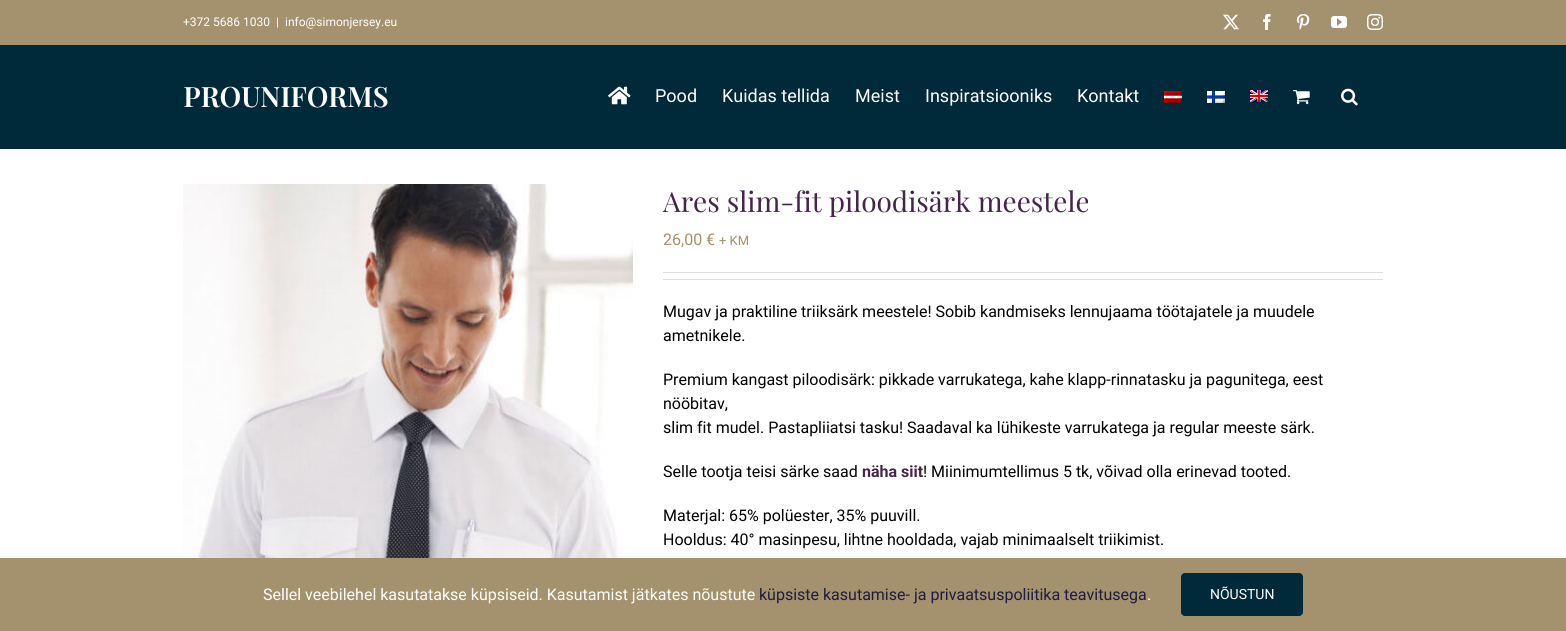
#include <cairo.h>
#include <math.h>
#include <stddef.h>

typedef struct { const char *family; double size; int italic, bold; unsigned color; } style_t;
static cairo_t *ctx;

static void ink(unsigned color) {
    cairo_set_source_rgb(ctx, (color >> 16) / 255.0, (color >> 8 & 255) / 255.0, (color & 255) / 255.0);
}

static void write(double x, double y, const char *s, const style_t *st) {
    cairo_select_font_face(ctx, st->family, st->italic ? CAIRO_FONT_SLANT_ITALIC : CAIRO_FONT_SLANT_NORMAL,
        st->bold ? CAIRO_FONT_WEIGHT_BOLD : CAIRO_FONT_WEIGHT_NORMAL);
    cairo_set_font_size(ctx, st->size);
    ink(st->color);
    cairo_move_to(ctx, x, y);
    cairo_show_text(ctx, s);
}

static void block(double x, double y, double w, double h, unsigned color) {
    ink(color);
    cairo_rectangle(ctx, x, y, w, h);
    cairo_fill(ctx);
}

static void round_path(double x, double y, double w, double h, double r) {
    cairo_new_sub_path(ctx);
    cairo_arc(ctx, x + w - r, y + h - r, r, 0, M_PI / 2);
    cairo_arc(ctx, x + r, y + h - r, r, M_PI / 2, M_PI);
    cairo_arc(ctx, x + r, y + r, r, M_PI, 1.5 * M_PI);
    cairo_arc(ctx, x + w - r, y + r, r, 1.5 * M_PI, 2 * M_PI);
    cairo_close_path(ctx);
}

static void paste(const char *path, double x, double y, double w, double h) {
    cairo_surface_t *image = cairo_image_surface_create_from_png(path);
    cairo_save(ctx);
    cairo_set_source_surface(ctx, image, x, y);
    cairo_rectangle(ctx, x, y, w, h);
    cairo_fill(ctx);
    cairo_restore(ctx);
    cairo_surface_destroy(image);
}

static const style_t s1 = {"Roboto", 12, 0, 0, 0xffffff};
static const style_t s2 = {"Roboto", 18, 0, 0, 0xffffff};
static const style_t s3 = {"Playfair Display", 28, 0, 0, 0x45254a};
static const style_t s4 = {"Roboto", 16, 0, 0, 0xa4916d};
static const style_t s5 = {"Roboto", 13, 0, 0, 0xa4916d};
static const style_t s6 = {"Roboto", 16, 0, 0, 0x000000};
static const style_t s7 = {"Roboto", 16, 0, 1, 0x45254a};
static const style_t s8 = {"Roboto", 16, 0, 0, 0xffffff};
static const style_t s9 = {"Roboto", 16, 0, 0, 0x1e1c43};
static const style_t s10 = {"Roboto", 14, 0, 0, 0xffffff};

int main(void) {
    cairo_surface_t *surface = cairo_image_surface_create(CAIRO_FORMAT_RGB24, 1566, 631);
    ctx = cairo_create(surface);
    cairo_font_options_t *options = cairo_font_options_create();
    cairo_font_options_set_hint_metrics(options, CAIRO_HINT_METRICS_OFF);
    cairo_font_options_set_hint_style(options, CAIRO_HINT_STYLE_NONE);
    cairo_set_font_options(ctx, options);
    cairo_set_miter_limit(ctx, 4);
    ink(0xffffff);
    cairo_paint(ctx);
    block(0, 0, 1566, 45, 0xa4916d);
    write(183, 26, "+372 5686 1030", &s1);
    write(276, 26, "|", &s1);
    write(285, 26, "info@simonjersey.eu", &s1);
    paste("pic1.png", 1223, 14, 16, 16);
    paste("pic2.png", 1263, 14, 8, 16);
    paste("pic3.png", 1296, 14, 14, 16);
    paste("pic4.png", 1331, 16, 16, 12);
    paste("pic5.png", 1367, 14, 16, 16);
    block(0, 45, 1566, 104, 0x002a3a);
    paste("pic6.png", 184, 86, 204, 22);
    paste("pic7.png", 608, 86, 23, 19);
    write(655, 102, "Pood", &s2);
    write(722, 102, "Kuidas tellida", &s2);
    write(855, 102, "Meist", &s2);
    write(925, 102, "Inspiratsiooniks", &s2);
    write(1077, 102, "Kontakt", &s2);
    paste("pic8.png", 1164, 91, 18, 12);
    paste("pic9.png", 1207, 91, 18, 12);
    paste("pic10.png", 1250, 90, 18, 12);
    paste("pic11.png", 1293, 90, 17, 15);
    paste("pic12.png", 1341, 88, 17, 18);
    paste("pic13.png", 183, 184, 450, 374);
    write(663, 212, "Ares slim-fit piloodisärk meestele", &s3);
    write(663, 245, "26,00 €", &s4);
    write(719, 245, "+ KM", &s5);
    block(663, 272, 720, 1, 0xe0dede);
    block(663, 279, 720, 1, 0xe0dede);
    write(663, 317, "Mugav ja praktiline triiksärk meestele! Sobib kandmiseks lennujaama töötajatele ja muudele", &s6);
    write(663, 341, "ametnikele.", &s6);
    write(663, 385, "Premium kangast piloodisärk: pikkade varrukatega, kahe klapp-rinnatasku ja pagunitega, eest", &s6);
    write(663, 409, "nööbitav,", &s6);
    write(663, 433, "slim fit mudel. Pastapliiatsi tasku! Saadaval ka lühikeste varrukatega ja regular meeste särk.", &s6);
    write(663, 477, "Selle tootja teisi särke saad", &s6);
    write(862, 477, "näha siit", &s7);
    write(923, 477, "! Miinimumtellimus 5 tk, võivad olla erinevad tooted.", &s6);
    write(663, 521, "Materjal: 65% polüester, 35% puuvill.", &s6);
    write(663, 545, "Hooldus: 40° masinpesu, lihtne hooldada, vajab minimaalselt triikimist.", &s6);
    block(0, 558, 1566, 73, 0xa4916d);
    write(263, 600, "Sellel veebilehel kasutatakse küpsiseid. Kasutamist jätkates nõustute", &s8);
    write(759, 600, "küpsiste kasutamise- ja privaatsuspoliitika teavitusega", &s9);
    write(1147, 600, ".", &s8);
    ink(0x002a3a);
    round_path(1181, 573, 122, 43, 4);
    cairo_fill(ctx);
    write(1210, 599, "NÕUSTUN", &s10);
    cairo_surface_write_to_png(surface, "screenshot.png");
    cairo_font_options_destroy(options);
    cairo_destroy(ctx);
    cairo_surface_destroy(surface);
    return 0;
}
